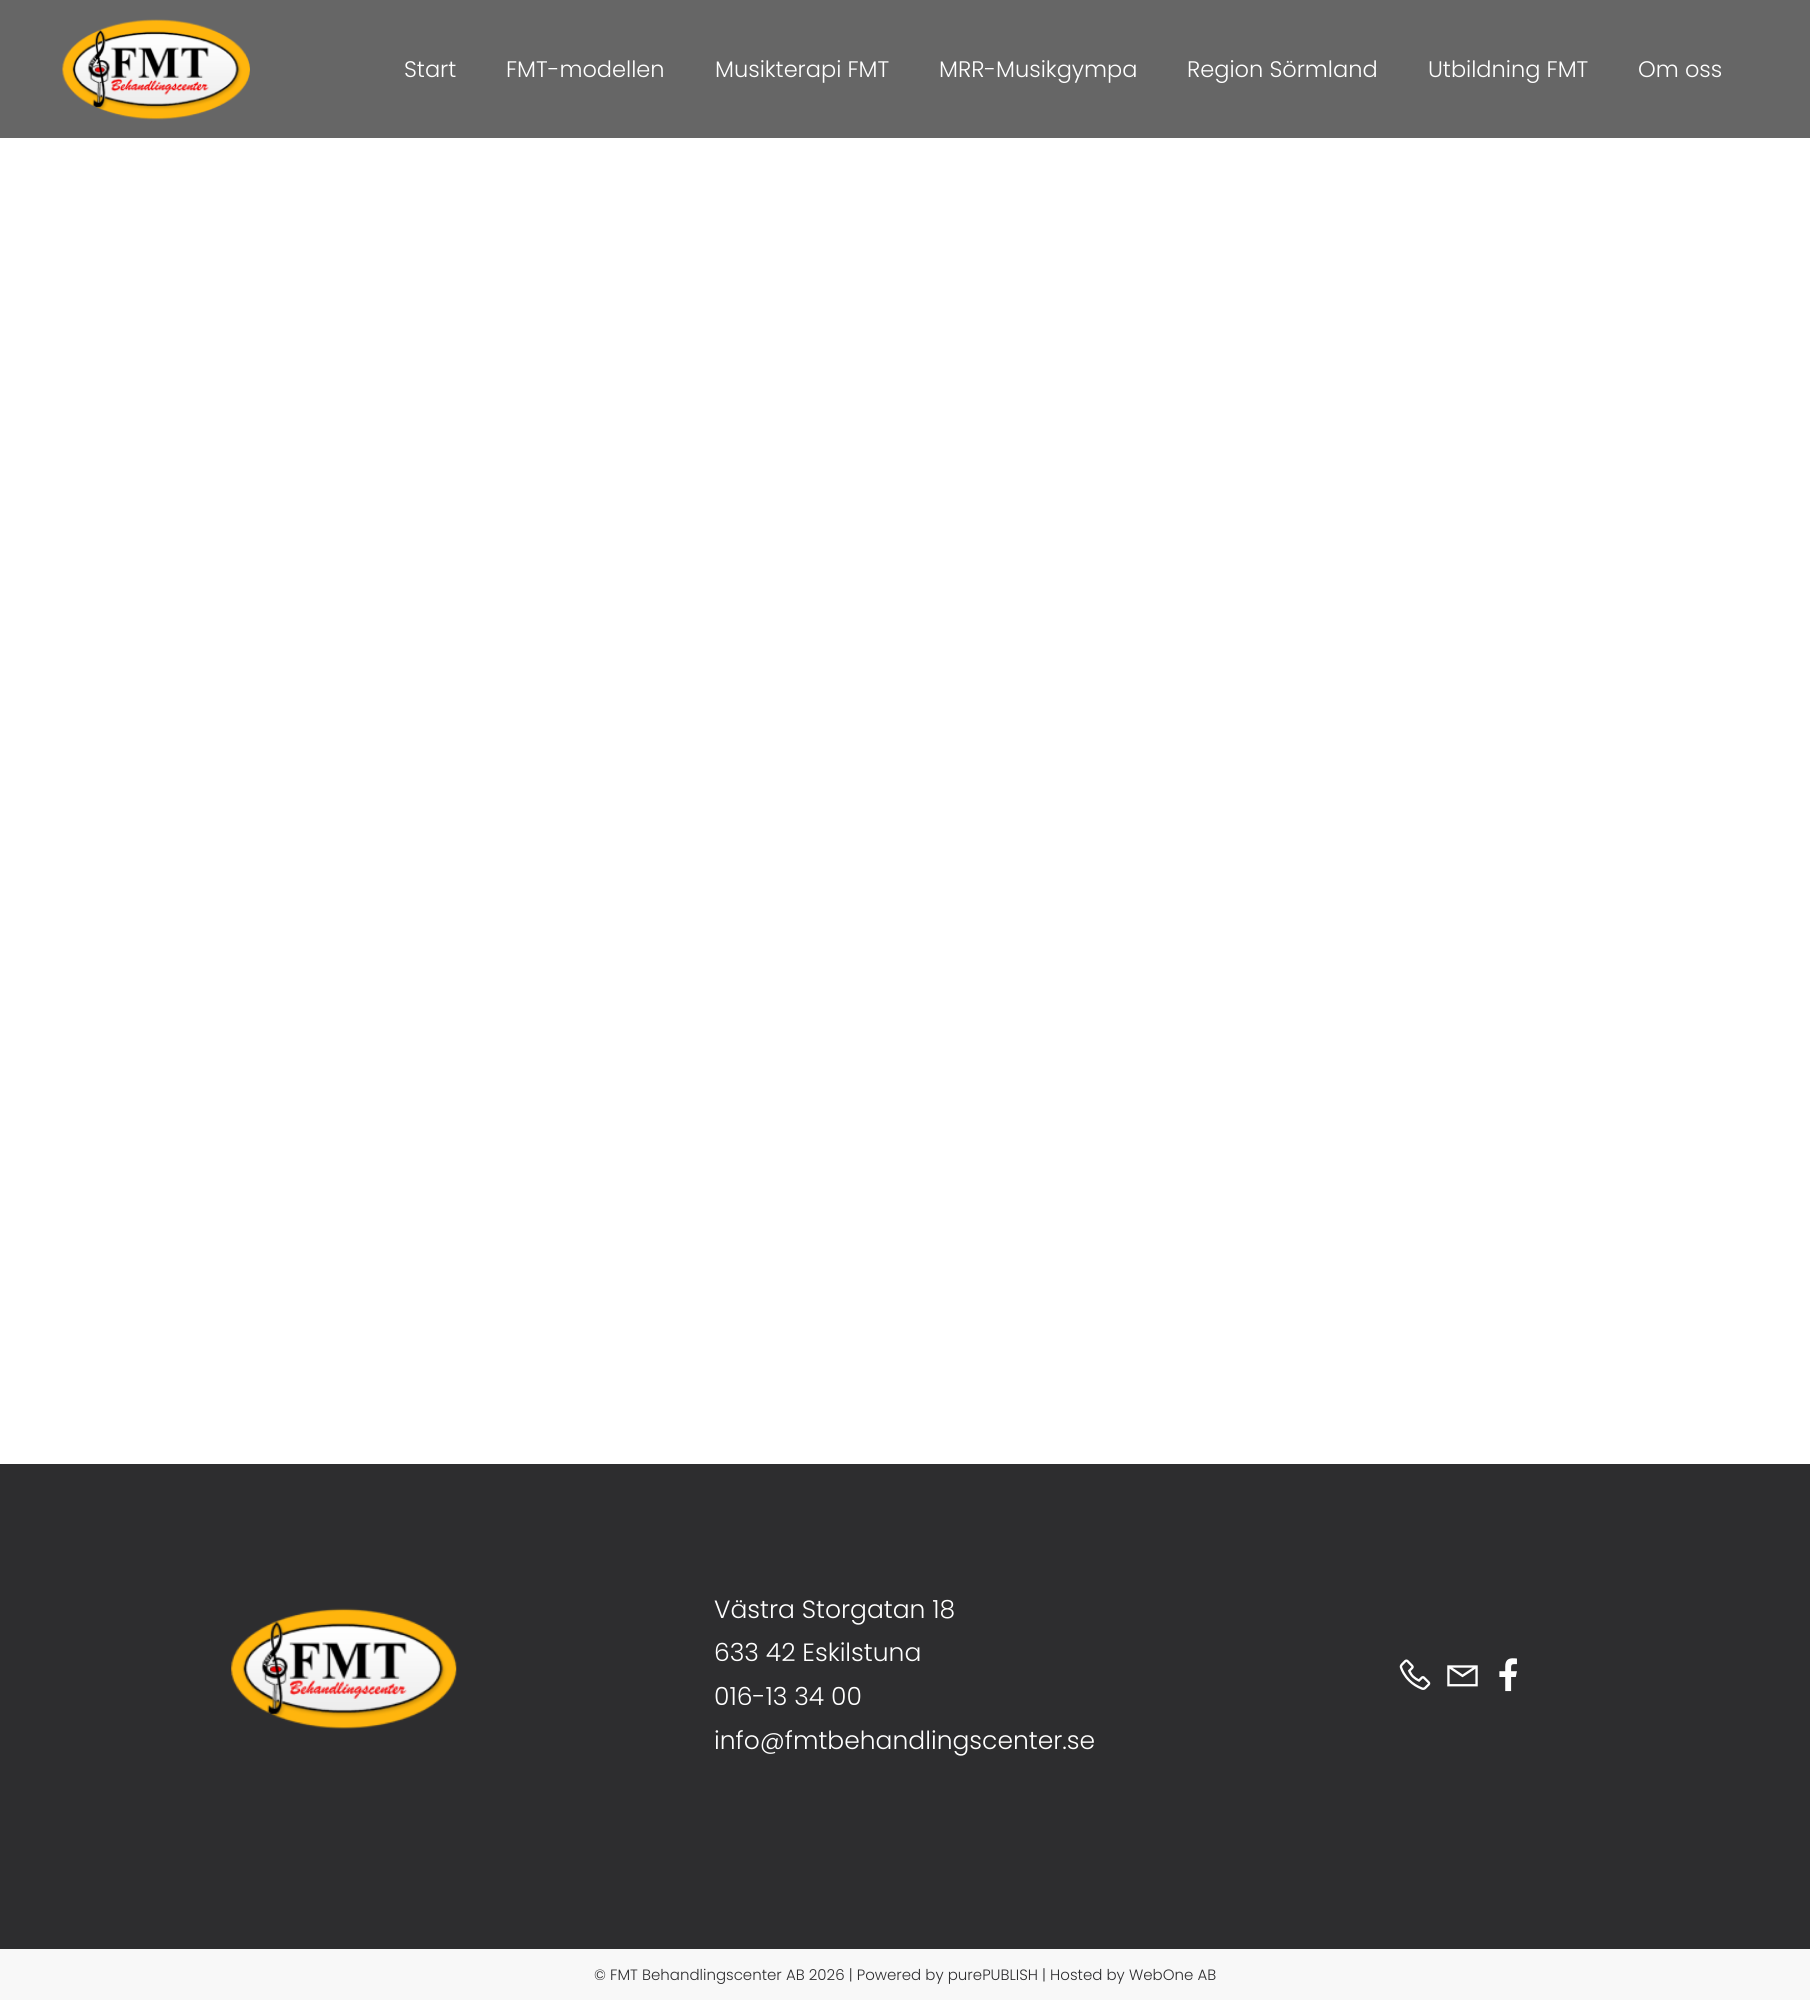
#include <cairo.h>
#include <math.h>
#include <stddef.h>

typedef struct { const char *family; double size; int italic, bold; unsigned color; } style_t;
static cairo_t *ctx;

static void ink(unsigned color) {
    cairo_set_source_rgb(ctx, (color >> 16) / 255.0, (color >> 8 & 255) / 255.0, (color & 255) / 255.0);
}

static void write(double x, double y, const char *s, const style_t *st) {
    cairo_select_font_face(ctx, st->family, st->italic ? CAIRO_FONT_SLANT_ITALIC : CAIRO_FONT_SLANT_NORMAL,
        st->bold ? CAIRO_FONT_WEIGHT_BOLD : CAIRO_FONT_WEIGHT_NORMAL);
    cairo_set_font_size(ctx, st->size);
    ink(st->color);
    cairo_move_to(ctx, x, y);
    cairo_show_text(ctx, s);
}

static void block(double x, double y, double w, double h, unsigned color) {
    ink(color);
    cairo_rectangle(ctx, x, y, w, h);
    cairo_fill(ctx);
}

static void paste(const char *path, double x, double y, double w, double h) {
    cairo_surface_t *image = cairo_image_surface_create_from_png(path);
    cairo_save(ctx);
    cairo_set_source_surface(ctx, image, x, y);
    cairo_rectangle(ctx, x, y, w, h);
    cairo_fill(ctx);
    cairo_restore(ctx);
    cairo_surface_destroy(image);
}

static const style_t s1 = {"Poppins Light", 22.5, 0, 0, 0xffffff};
static const style_t s2 = {"Poppins Light", 25, 0, 0, 0xffffff};
static const style_t s3 = {"Poppins Light", 15, 0, 0, 0x2d2d2f};

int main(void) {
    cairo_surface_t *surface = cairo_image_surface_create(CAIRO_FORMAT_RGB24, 1810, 2000);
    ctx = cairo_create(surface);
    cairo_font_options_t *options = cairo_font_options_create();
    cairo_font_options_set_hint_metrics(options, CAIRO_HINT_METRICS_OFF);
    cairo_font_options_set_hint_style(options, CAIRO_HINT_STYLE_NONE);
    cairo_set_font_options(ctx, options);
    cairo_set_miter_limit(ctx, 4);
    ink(0xffffff);
    cairo_paint(ctx);
    block(0, 0, 1810, 138, 0x666666);
    paste("pic1.png", 62, 19, 188, 101);
    write(404, 77, "Start", &s1);
    write(506, 77, "FMT-modellen", &s1);
    write(715, 77, "Musikterapi FMT", &s1);
    write(939, 77, "MRR-Musikgympa", &s1);
    write(1187, 77, "Region Sörmland", &s1);
    write(1428, 77, "Utbildning FMT", &s1);
    write(1638, 77, "Om oss", &s1);
    block(0, 1464, 1810, 485, 0x2d2d2f);
    paste("pic2.png", 231, 1608, 226, 121);
    write(714, 1618, "Västra Storgatan 18", &s2);
    write(714, 1661, "633 42 Eskilstuna", &s2);
    write(714, 1705, "016-13 34 00", &s2);
    write(714, 1749, "info@fmtbehandlingscenter.se", &s2);
    paste("pic3.png", 1399, 1659, 32, 31);
    paste("pic4.png", 1447, 1665, 31, 22);
    paste("pic5.png", 1499, 1658, 18, 34);
    block(0, 1949, 1810, 51, 0xf8f8f8);
    write(594, 1980, "© FMT Behandlingscenter AB 2026 | Powered by purePUBLISH | Hosted by WebOne AB", &s3);
    cairo_surface_write_to_png(surface, "screenshot.png");
    cairo_font_options_destroy(options);
    cairo_destroy(ctx);
    cairo_surface_destroy(surface);
    return 0;
}
